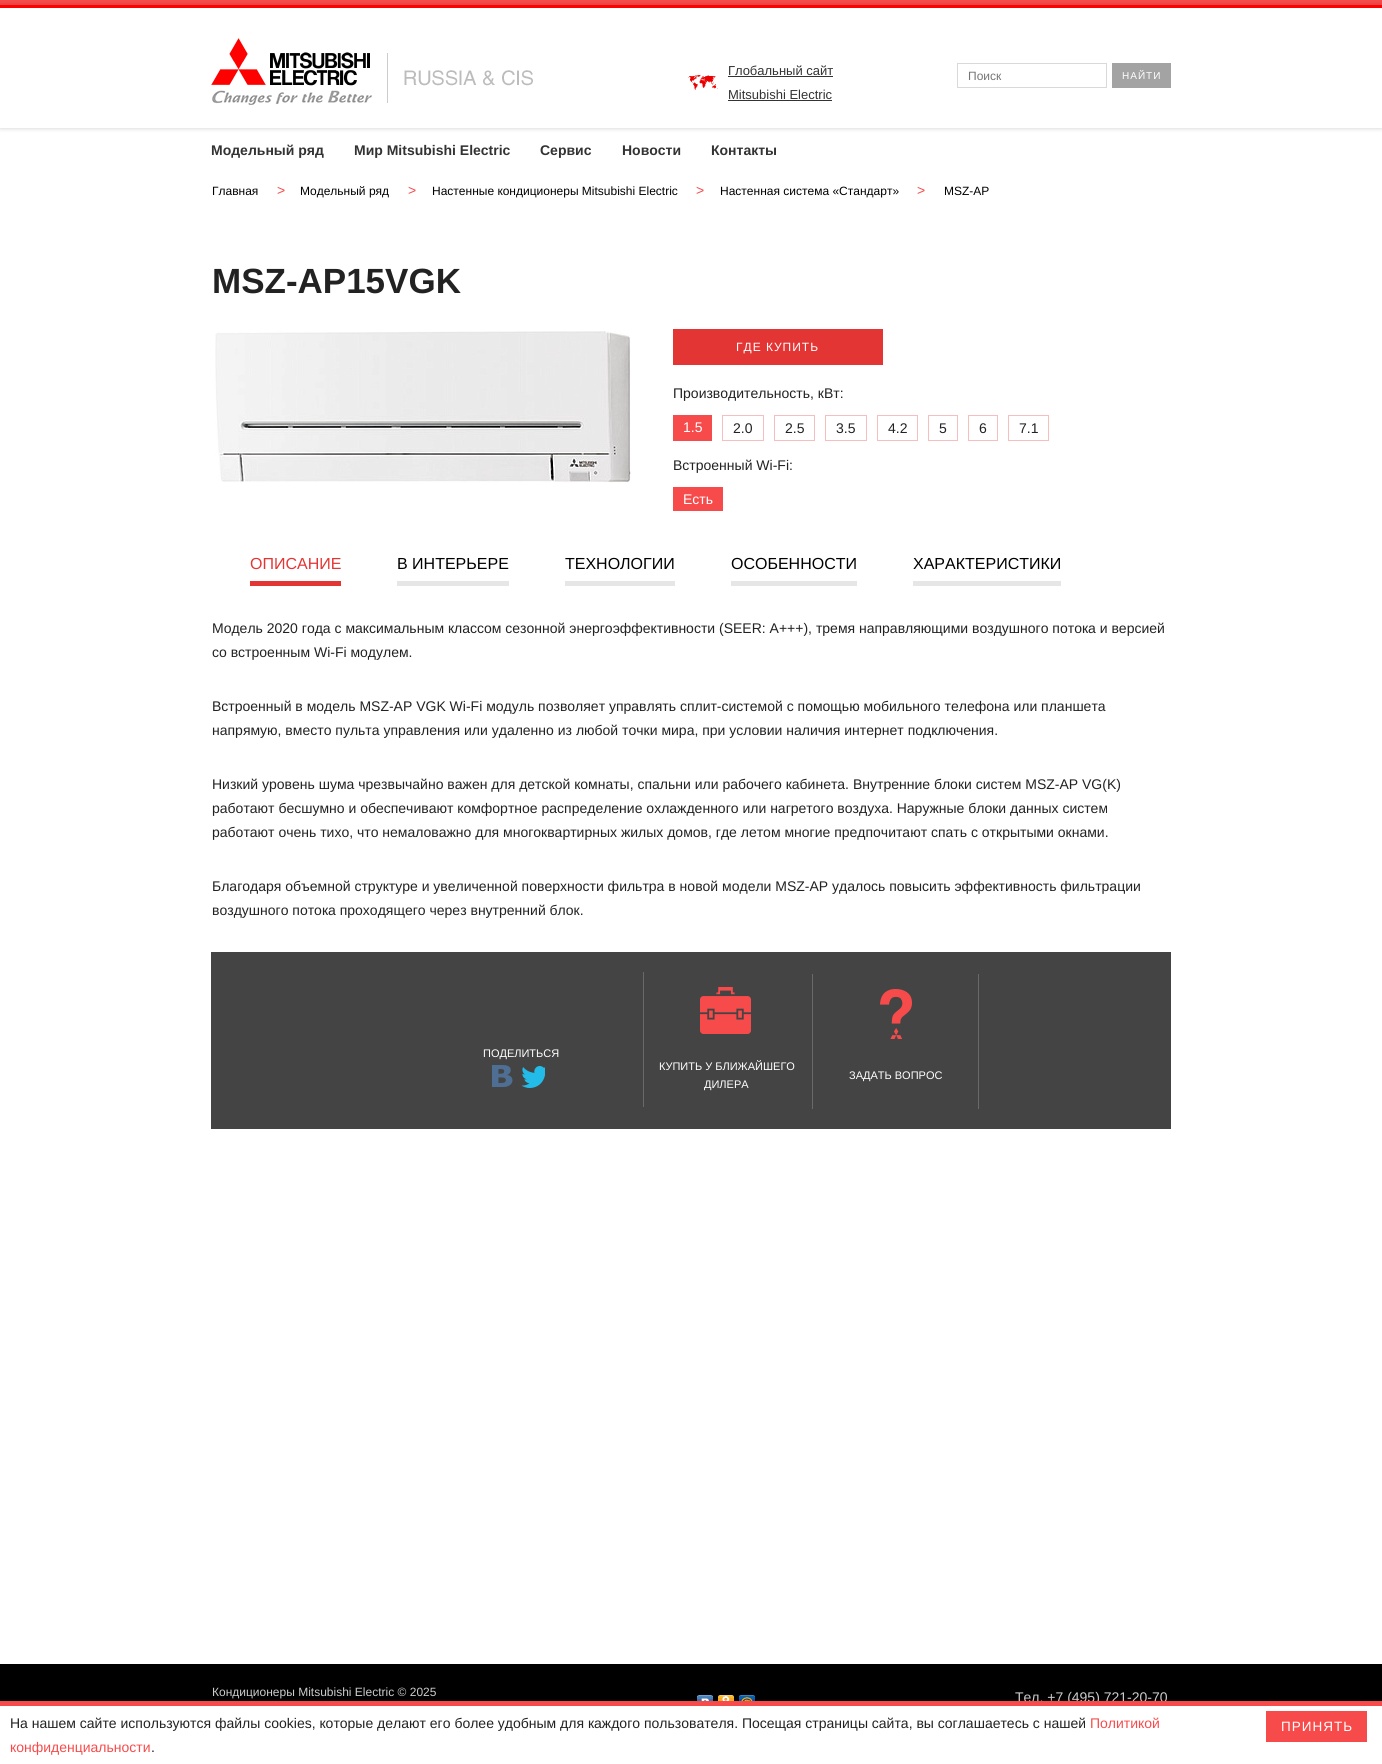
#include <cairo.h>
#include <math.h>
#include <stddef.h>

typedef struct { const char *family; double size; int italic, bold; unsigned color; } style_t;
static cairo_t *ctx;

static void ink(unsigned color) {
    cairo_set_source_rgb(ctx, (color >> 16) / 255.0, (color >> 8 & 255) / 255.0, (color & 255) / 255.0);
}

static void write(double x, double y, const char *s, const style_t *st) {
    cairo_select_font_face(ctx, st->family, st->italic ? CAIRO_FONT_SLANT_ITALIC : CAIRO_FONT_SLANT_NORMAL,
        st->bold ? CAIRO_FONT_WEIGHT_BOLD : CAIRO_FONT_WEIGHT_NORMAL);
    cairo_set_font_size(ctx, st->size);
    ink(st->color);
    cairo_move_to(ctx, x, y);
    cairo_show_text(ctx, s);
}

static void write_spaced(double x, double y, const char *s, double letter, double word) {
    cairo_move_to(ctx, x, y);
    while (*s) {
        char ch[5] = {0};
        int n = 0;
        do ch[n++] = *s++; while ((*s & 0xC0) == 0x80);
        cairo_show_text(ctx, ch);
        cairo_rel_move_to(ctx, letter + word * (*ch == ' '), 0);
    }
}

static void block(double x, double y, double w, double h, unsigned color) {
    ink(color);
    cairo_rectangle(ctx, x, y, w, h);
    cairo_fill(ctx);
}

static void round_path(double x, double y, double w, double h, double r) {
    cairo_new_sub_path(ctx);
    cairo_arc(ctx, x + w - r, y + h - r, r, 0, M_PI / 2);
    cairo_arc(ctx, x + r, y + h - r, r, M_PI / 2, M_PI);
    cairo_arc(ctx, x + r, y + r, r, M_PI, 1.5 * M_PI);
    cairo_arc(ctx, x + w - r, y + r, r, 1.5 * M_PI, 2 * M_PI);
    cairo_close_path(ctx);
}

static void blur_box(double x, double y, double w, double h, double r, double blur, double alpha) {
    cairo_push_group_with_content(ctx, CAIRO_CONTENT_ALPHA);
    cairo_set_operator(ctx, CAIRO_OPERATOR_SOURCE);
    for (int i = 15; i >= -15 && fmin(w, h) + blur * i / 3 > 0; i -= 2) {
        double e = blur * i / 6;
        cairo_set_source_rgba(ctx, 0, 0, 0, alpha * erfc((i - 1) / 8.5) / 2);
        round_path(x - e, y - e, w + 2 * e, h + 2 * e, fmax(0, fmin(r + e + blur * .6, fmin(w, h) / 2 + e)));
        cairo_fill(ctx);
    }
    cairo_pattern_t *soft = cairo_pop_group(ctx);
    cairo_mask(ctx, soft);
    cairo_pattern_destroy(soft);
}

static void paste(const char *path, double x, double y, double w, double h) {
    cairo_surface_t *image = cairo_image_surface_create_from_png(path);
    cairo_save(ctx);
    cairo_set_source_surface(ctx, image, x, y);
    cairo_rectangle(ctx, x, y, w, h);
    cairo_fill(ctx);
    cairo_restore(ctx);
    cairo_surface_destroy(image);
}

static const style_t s1 = {"Liberation Sans", 13, 0, 0, 0x333333};
static const style_t s2 = {"Liberation Sans", 12, 0, 0, 0x757575};
static const style_t s3 = {"Liberation Sans", 14, 0, 1, 0x333333};
static const style_t s4 = {"Liberation Sans", 12, 0, 0, 0x000000};
static const style_t s5 = {"Liberation Sans", 14, 0, 0, 0xf74b4b};
static const style_t s6 = {"Liberation Sans", 35, 0, 1, 0x222222};
static const style_t s7 = {"Liberation Sans", 14, 0, 0, 0x222222};
static const style_t s8 = {"Liberation Sans", 14, 0, 0, 0xffffff};
static const style_t s9 = {"Liberation Sans", 16, 0, 0, 0xe43535};
static const style_t s10 = {"Liberation Sans", 16, 0, 0, 0x000000};
static const style_t s11 = {"Liberation Sans", 11, 0, 0, 0xffffff};
static const style_t s12 = {"Liberation Sans", 12, 0, 0, 0xcccccc};
static const style_t s13 = {"Liberation Sans", 14, 0, 0, 0xcccccc};

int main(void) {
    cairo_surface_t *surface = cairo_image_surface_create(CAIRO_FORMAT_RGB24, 1382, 1764);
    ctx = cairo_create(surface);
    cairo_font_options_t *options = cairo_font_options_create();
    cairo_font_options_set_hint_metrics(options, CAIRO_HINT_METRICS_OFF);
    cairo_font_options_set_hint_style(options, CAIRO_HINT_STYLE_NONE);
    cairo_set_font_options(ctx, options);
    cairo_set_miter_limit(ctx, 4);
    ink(0xffffff);
    cairo_paint(ctx);
    block(0, 0, 1382, 5, 0xf74b4b);
    cairo_save(ctx);
    cairo_set_fill_rule(ctx, CAIRO_FILL_RULE_EVEN_ODD);
    cairo_new_path(ctx);
    cairo_move_to(ctx, 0, 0);
    cairo_line_to(ctx, 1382, 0);
    cairo_line_to(ctx, 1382, 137);
    cairo_line_to(ctx, 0, 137);
    cairo_close_path(ctx);
    cairo_move_to(ctx, 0, 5);
    cairo_line_to(ctx, 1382, 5);
    cairo_line_to(ctx, 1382, 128);
    cairo_line_to(ctx, 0, 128);
    cairo_close_path(ctx);
    cairo_clip(ctx);
    ink(0x000000);
    blur_box(0, 5, 1382, 123, 0, 2.5, 0.2);
    cairo_restore(ctx);
    block(0, 5, 1382, 3, 0xfe0000);
    paste("pic1.png", 211, 38, 322, 67);
    paste("pic2.png", 688, 75, 30, 15);
    write(728, 75, "Глобальный сайт", &s1);
    block(728, 76, 105, 1, 0x333333);
    write(728, 99, "Mitsubishi Electric", &s1);
    block(728, 100, 104, 1, 0x333333);
    cairo_rectangle(ctx, 957.5, 63.5, 149, 24);
    ink(0xd9d9d9);
    cairo_set_line_width(ctx, 1);
    cairo_stroke(ctx);
    write(968, 80, "Поиск", &s2);
    block(1112, 63, 59, 25, 0xa3a3a3);
    cairo_set_font_size(ctx, 10);
    ink(0xffffff);
    write_spaced(1122, 79, "НАЙТИ", 1, 0);
    write(211, 155, "Модельный ряд", &s3);
    write(354, 155, "Мир Mitsubishi Electric", &s3);
    write(540, 155, "Сервис", &s3);
    write(622, 155, "Новости", &s3);
    write(711, 155, "Контакты", &s3);
    write(212, 195, "Главная", &s4);
    write(277, 195, ">", &s5);
    write(300, 195, "Модельный ряд", &s4);
    write(408, 195, ">", &s5);
    write(432, 195, "Настенные кондиционеры Mitsubishi Electric", &s4);
    write(696, 195, ">", &s5);
    write(720, 195, "Настенная система «Стандарт»", &s4);
    write(917, 195, ">", &s5);
    write(944, 195, "MSZ-AP", &s4);
    write(212, 293, "MSZ-AP15VGK", &s6);
    paste("pic3.png", 215, 331, 416, 152);
    block(673, 329, 210, 36, 0xe43535);
    cairo_select_font_face(ctx, "Liberation Sans", CAIRO_FONT_SLANT_NORMAL, CAIRO_FONT_WEIGHT_NORMAL);
    cairo_set_font_size(ctx, 12);
    ink(0xffffff);
    write_spaced(736, 351, "ГДЕ КУПИТЬ", 1, 0);
    write(673, 398, "Производительность, кВт:", &s7);
    block(673, 415, 39, 26, 0xf74b4b);
    write(683, 432, "1.5", &s8);
    cairo_rectangle(ctx, 722.5, 415.5, 41, 25);
    ink(0xf6bebe);
    cairo_stroke(ctx);
    write(733, 433, "2.0", &s7);
    cairo_rectangle(ctx, 774.5, 415.5, 40, 25);
    ink(0xf6bebe);
    cairo_stroke(ctx);
    write(785, 433, "2.5", &s7);
    cairo_rectangle(ctx, 825.5, 415.5, 41, 25);
    ink(0xf6bebe);
    cairo_stroke(ctx);
    write(836, 433, "3.5", &s7);
    cairo_rectangle(ctx, 877.5, 415.5, 40, 25);
    ink(0xf6bebe);
    cairo_stroke(ctx);
    write(888, 433, "4.2", &s7);
    cairo_rectangle(ctx, 928.5, 415.5, 29, 25);
    ink(0xf6bebe);
    cairo_stroke(ctx);
    write(939, 433, "5", &s7);
    cairo_rectangle(ctx, 968.5, 415.5, 29, 25);
    ink(0xf6bebe);
    cairo_stroke(ctx);
    write(979, 433, "6", &s7);
    cairo_rectangle(ctx, 1008.5, 415.5, 40, 25);
    ink(0xf6bebe);
    cairo_stroke(ctx);
    write(1019, 433, "7.1", &s7);
    write(673, 470, "Встроенный Wi-Fi:", &s7);
    block(673, 487, 50, 24, 0xf74b4b);
    write(683, 504, "Есть", &s8);
    block(250, 581, 91, 5, 0xe43535);
    write(250, 569, "ОПИСАНИЕ", &s9);
    block(397, 581, 112, 5, 0xe6e6e6);
    write(397, 569, "В ИНТЕРЬЕРЕ", &s10);
    block(565, 581, 110, 5, 0xe6e6e6);
    write(565, 569, "ТЕХНОЛОГИИ", &s10);
    block(731, 581, 126, 5, 0xe6e6e6);
    write(731, 569, "ОСОБЕННОСТИ", &s10);
    block(913, 581, 148, 5, 0xe6e6e6);
    write(913, 569, "ХАРАКТЕРИСТИКИ", &s10);
    write(212, 633, "Модель 2020 года с максимальным классом сезонной энергоэффективности (SEER: A+++), тремя направляющими воздушного потока и версией", &s7);
    write(212, 657, "со встроенным Wi-Fi модулем.", &s7);
    write(212, 711, "Встроенный в модель MSZ-AP VGK Wi-Fi модуль позволяет управлять сплит-системой с помощью мобильного телефона или планшета", &s7);
    write(212, 735, "напрямую, вместо пульта управления или удаленно из любой точки мира, при условии наличия интернет подключения.", &s7);
    write(212, 789, "Низкий уровень шума чрезвычайно важен для детской комнаты, спальни или рабочего кабинета. Внутренние блоки систем MSZ-AP VG(K)", &s7);
    write(212, 813, "работают бесшумно и обеспечивают комфортное распределение охлажденного или нагретого воздуха. Наружные блоки данных систем", &s7);
    write(212, 837, "работают очень тихо, что немаловажно для многоквартирных жилых домов, где летом многие предпочитают спать с открытыми окнами.", &s7);
    write(212, 891, "Благодаря объемной структуре и увеличенной поверхности фильтра в новой модели MSZ-AP удалось повысить эффективность фильтрации", &s7);
    write(212, 915, "воздушного потока проходящего через внутренний блок.", &s7);
    block(211, 952, 960, 177, 0x444444);
    write(483, 1057, "ПОДЕЛИТЬСЯ", &s11);
    paste("pic4.png", 492, 1065, 21, 22);
    paste("pic5.png", 521, 1066, 24, 22);
    block(643, 972, 1, 135, 0x696969);
    paste("pic6.png", 700, 987, 51, 47);
    write(659, 1070, "КУПИТЬ У БЛИЖАЙШЕГО", &s11);
    write(704, 1088, "ДИЛЕРА", &s11);
    block(978, 974, 1, 135, 0x696969);
    block(812, 974, 1, 135, 0x696969);
    paste("pic7.png", 880, 989, 32, 50);
    write(849, 1079, "ЗАДАТЬ ВОПРОС", &s11);
    block(0, 1664, 1382, 37, 0x000000);
    write(212, 1696, "Кондиционеры Mitsubishi Electric © 2025", &s12);
    paste("pic8.png", 697, 1695, 16, 6);
    paste("pic9.png", 718, 1695, 16, 6);
    paste("pic10.png", 739, 1695, 16, 6);
    write(1015, 1702, "Тел. +7 (495) 721-20-70", &s13);
    block(0, 1701, 1382, 5, 0xf74b4b);
    write(10, 1728, "На нашем сайте используются файлы cookies, которые делают его более удобным для каждого пользователя. Посещая страницы сайта, вы соглашаетесь с нашей", &s7);
    write(1090, 1728, "Политикой", &s5);
    write(10, 1752, "конфиденциальности", &s5);
    write(151, 1752, ".", &s7);
    block(1266, 1711, 101, 31, 0xf74b4b);
    cairo_set_font_size(ctx, 13.5);
    ink(0xffffff);
    write_spaced(1281, 1731, "ПРИНЯТЬ", 1, 0);
    cairo_surface_write_to_png(surface, "screenshot.png");
    cairo_font_options_destroy(options);
    cairo_destroy(ctx);
    cairo_surface_destroy(surface);
    return 0;
}
